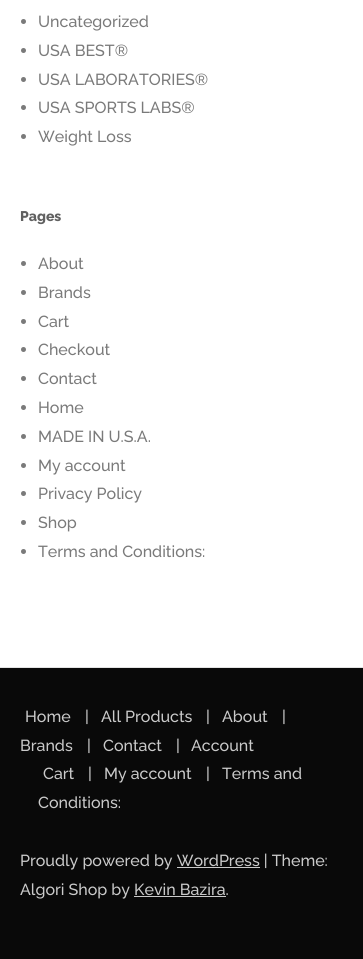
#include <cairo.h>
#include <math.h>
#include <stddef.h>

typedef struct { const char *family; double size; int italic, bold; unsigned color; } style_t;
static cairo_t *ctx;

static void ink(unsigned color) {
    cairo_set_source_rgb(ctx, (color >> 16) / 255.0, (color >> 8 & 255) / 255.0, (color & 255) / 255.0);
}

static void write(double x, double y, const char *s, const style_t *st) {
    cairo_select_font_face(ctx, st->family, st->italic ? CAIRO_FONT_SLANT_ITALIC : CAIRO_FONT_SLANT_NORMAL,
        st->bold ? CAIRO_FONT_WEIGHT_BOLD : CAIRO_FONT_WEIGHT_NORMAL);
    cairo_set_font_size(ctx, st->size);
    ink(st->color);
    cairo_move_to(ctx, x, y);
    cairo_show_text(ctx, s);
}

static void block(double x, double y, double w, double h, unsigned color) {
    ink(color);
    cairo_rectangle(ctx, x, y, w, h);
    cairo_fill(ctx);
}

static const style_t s1 = {"Raleway Medium", 16, 0, 0, 0x7a7a7a};
static const style_t s2 = {"Raleway ExtraBold", 14, 0, 0, 0x616161};
static const style_t s3 = {"Raleway Medium", 16, 0, 0, 0xcacaca};

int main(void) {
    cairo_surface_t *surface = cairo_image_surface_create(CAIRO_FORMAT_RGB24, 363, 959);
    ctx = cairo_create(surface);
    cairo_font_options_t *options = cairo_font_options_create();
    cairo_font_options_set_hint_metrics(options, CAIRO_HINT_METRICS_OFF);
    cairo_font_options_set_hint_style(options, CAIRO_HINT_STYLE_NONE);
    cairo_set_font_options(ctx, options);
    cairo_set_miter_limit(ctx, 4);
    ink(0xffffff);
    cairo_paint(ctx);
    block(0, 667, 363, 1, 0xe3e3e3);
    ink(0x7a7a7a);
    cairo_arc(ctx, 23.5, 21.5, 2.5, 0, 2 * M_PI);
    cairo_fill(ctx);
    write(38, 27, "Uncategorized", &s1);
    cairo_new_path(ctx);
    cairo_arc(ctx, 23.5, 50.5, 2.5, 0, 2 * M_PI);
    cairo_fill(ctx);
    write(38, 56, "USA BEST®", &s1);
    cairo_new_path(ctx);
    cairo_arc(ctx, 23.5, 79.5, 2.5, 0, 2 * M_PI);
    cairo_fill(ctx);
    write(38, 85, "USA LABORATORIES®", &s1);
    cairo_new_path(ctx);
    cairo_arc(ctx, 23.5, 107.5, 2.5, 0, 2 * M_PI);
    cairo_fill(ctx);
    write(38, 113, "USA SPORTS LABS®", &s1);
    cairo_new_path(ctx);
    cairo_arc(ctx, 23.5, 136.5, 2.5, 0, 2 * M_PI);
    cairo_fill(ctx);
    write(38, 142, "Weight Loss", &s1);
    write(20, 221, "Pages", &s2);
    ink(0x7a7a7a);
    cairo_new_path(ctx);
    cairo_arc(ctx, 23.5, 263.5, 2.5, 0, 2 * M_PI);
    cairo_fill(ctx);
    write(38, 269, "About", &s1);
    cairo_new_path(ctx);
    cairo_arc(ctx, 23.5, 292.5, 2.5, 0, 2 * M_PI);
    cairo_fill(ctx);
    write(38, 298, "Brands", &s1);
    cairo_new_path(ctx);
    cairo_arc(ctx, 23.5, 321.5, 2.5, 0, 2 * M_PI);
    cairo_fill(ctx);
    write(38, 327, "Cart", &s1);
    cairo_new_path(ctx);
    cairo_arc(ctx, 23.5, 349.5, 2.5, 0, 2 * M_PI);
    cairo_fill(ctx);
    write(38, 355, "Checkout", &s1);
    cairo_new_path(ctx);
    cairo_arc(ctx, 23.5, 378.5, 2.5, 0, 2 * M_PI);
    cairo_fill(ctx);
    write(38, 384, "Contact", &s1);
    cairo_new_path(ctx);
    cairo_arc(ctx, 23.5, 407.5, 2.5, 0, 2 * M_PI);
    cairo_fill(ctx);
    write(38, 413, "Home", &s1);
    cairo_new_path(ctx);
    cairo_arc(ctx, 23.5, 436.5, 2.5, 0, 2 * M_PI);
    cairo_fill(ctx);
    write(38, 442, "MADE IN U.S.A.", &s1);
    cairo_new_path(ctx);
    cairo_arc(ctx, 23.5, 465.5, 2.5, 0, 2 * M_PI);
    cairo_fill(ctx);
    write(38, 471, "My account", &s1);
    cairo_new_path(ctx);
    cairo_arc(ctx, 23.5, 493.5, 2.5, 0, 2 * M_PI);
    cairo_fill(ctx);
    write(38, 499, "Privacy Policy", &s1);
    cairo_new_path(ctx);
    cairo_arc(ctx, 23.5, 522.5, 2.5, 0, 2 * M_PI);
    cairo_fill(ctx);
    write(38, 528, "Shop", &s1);
    cairo_new_path(ctx);
    cairo_arc(ctx, 23.5, 551.5, 2.5, 0, 2 * M_PI);
    cairo_fill(ctx);
    write(38, 557, "Terms and Conditions:", &s1);
    block(0, 668, 363, 291, 0x090909);
    write(282, 722, "|", &s3);
    write(20, 751, "Brands", &s3);
    write(25, 722, "Home", &s3);
    write(85, 722, "|", &s3);
    write(101, 722, "All Products", &s3);
    write(206, 722, "|", &s3);
    write(222, 722, "About", &s3);
    write(176, 751, "|", &s3);
    write(191, 751, "Account", &s3);
    write(206, 779, "|", &s3);
    write(222, 779, "Terms and", &s3);
    write(38, 808, "Conditions:", &s3);
    write(43, 779, "Cart", &s3);
    write(88, 779, "|", &s3);
    write(104, 779, "My account", &s3);
    write(87, 751, "|", &s3);
    write(103, 751, "Contact", &s3);
    write(20, 866, "Proudly powered by WordPress | Theme:", &s3);
    block(177, 867, 83, 1, 0xcacaca);
    write(20, 895, "Algori Shop by Kevin Bazira.", &s3);
    block(134, 896, 92, 1, 0xcacaca);
    cairo_surface_write_to_png(surface, "screenshot.png");
    cairo_font_options_destroy(options);
    cairo_destroy(ctx);
    cairo_surface_destroy(surface);
    return 0;
}
